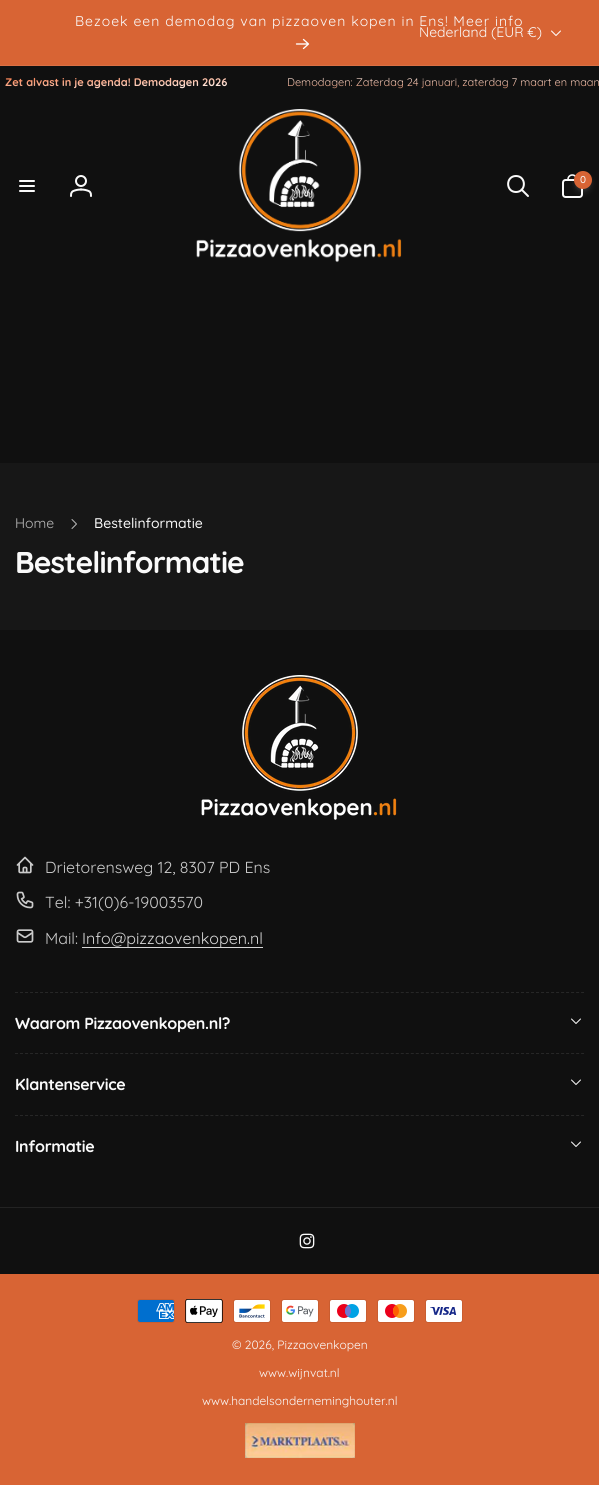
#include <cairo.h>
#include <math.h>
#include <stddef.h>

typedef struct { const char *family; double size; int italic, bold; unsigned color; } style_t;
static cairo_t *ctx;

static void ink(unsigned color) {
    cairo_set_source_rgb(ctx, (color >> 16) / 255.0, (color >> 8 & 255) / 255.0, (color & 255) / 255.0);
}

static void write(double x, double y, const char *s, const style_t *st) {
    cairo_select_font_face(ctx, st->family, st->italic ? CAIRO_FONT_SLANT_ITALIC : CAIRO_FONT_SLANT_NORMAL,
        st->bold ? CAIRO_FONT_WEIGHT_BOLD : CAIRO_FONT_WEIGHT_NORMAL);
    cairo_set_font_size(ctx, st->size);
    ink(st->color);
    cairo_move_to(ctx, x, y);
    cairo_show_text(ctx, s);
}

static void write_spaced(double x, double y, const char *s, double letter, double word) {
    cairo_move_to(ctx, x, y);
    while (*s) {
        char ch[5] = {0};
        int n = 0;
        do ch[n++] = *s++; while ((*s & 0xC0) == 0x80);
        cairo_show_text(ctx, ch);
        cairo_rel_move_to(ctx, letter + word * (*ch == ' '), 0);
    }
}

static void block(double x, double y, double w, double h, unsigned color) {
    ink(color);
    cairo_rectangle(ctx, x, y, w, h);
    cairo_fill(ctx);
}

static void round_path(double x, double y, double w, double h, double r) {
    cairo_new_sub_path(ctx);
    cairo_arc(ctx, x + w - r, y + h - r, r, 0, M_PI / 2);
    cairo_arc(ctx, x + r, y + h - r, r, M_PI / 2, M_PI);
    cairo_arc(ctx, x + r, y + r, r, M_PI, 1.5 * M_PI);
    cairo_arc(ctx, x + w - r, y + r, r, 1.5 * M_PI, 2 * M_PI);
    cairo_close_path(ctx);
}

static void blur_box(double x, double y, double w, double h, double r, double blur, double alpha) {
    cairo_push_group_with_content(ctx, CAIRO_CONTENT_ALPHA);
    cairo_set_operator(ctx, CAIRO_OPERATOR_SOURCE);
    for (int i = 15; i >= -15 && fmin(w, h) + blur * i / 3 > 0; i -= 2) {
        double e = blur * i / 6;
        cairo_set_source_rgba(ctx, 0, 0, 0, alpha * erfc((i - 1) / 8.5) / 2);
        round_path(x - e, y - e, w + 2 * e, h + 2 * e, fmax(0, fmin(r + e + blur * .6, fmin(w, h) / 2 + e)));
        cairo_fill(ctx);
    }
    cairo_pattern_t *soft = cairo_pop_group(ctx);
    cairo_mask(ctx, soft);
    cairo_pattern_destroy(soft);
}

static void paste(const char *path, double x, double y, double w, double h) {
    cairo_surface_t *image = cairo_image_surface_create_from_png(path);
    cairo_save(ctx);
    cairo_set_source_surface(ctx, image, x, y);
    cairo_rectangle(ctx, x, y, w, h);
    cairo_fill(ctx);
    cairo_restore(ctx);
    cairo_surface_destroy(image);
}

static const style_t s1 = {"Quicksand", 14, 0, 0, 0xfafafa};
static const style_t s2 = {"Quicksand Medium", 10, 0, 0, 0xfafafa};
static const style_t s3 = {"Quicksand", 14, 0, 0, 0xb9b9b9};
static const style_t s4 = {"Quicksand Medium", 14, 0, 0, 0xfafafa};
static const style_t s5 = {"Quicksand", 16, 0, 0, 0xcbcbcb};
static const style_t s6 = {"Quicksand", 16, 0, 0, 0xd7d7d7};
static const style_t s7 = {"Quicksand", 12, 0, 0, 0xfafafa};

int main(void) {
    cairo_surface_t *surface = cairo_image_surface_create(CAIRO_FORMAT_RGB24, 599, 1485);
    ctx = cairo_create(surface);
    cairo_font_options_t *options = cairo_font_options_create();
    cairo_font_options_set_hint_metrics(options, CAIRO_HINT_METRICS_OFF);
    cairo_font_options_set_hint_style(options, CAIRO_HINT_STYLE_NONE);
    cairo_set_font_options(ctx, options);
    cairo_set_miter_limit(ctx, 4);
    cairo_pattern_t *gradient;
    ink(0x101010);
    cairo_paint(ctx);
    block(0, 0, 599, 65, 0xd86434);
    block(0, 65, 599, 1, 0xdb7044);
    cairo_select_font_face(ctx, "Quicksand", CAIRO_FONT_SLANT_NORMAL, CAIRO_FONT_WEIGHT_NORMAL);
    cairo_set_font_size(ctx, 14);
    ink(0xfafafa);
    write_spaced(75, 26, "Bezoek een demodag van pizzaoven kopen in Ens! Meer info", 1, 0);
    cairo_new_path(ctx);
    cairo_move_to(ctx, 303.5, 39.5);
    cairo_line_to(ctx, 308.5, 44);
    cairo_move_to(ctx, 308.5, 44);
    cairo_line_to(ctx, 303.5, 48.5);
    cairo_move_to(ctx, 308.5, 44);
    cairo_line_to(ctx, 296.5, 44);
    ink(0xffffff);
    cairo_set_line_width(ctx, 1.3);
    cairo_set_line_cap(ctx, CAIRO_LINE_CAP_ROUND);
    cairo_set_line_join(ctx, CAIRO_LINE_JOIN_ROUND);
    cairo_stroke(ctx);
    write(419, 37, "Nederland (EUR €)", &s1);
    cairo_new_path(ctx);
    cairo_move_to(ctx, 560.5, 31);
    cairo_line_to(ctx, 556, 35.5);
    cairo_line_to(ctx, 551.5, 31);
    ink(0xffffff);
    cairo_set_line_width(ctx, 1);
    cairo_stroke(ctx);
    cairo_select_font_face(ctx, "Quicksand", CAIRO_FONT_SLANT_NORMAL, CAIRO_FONT_WEIGHT_BOLD);
    cairo_set_font_size(ctx, 11);
    gradient = cairo_pattern_create_linear(115, 64, 117, 101);
    cairo_pattern_add_color_stop_rgba(gradient, 0, 0.961, 0.341, 0.094, 1);
    cairo_pattern_add_color_stop_rgba(gradient, 0.87, 1, 1, 1, 1);
    cairo_set_source(ctx, gradient);
    cairo_pattern_destroy(gradient);
    cairo_move_to(ctx, 5, 86);
    cairo_show_text(ctx, "Zet alvast in je agenda! Demodagen 2026");
    cairo_select_font_face(ctx, "Quicksand", CAIRO_FONT_SLANT_NORMAL, CAIRO_FONT_WEIGHT_NORMAL);
    gradient = cairo_pattern_create_linear(508, 96, 508, 69);
    cairo_pattern_add_color_stop_rgba(gradient, 0, 0.847, 0.392, 0.204, 1);
    cairo_pattern_add_color_stop_rgba(gradient, 0.87, 1, 1, 1, 1);
    cairo_set_source(ctx, gradient);
    cairo_pattern_destroy(gradient);
    cairo_move_to(ctx, 287, 86);
    cairo_show_text(ctx, "Demodagen: Zaterdag 24 januari, zaterdag 7 maart en maan");
    paste("pic1.png", 19, 180, 16, 12);
    paste("pic2.png", 70, 175, 22, 22);
    paste("pic3.png", 196, 109, 206, 154);
    cairo_new_path(ctx);
    cairo_move_to(ctx, 528, 196);
    cairo_line_to(ctx, 521.5, 189.5);
    cairo_move_to(ctx, 516, 192);
    cairo_curve_to(ctx, 526.5, 192, 526.5, 176, 516, 176);
    cairo_curve_to(ctx, 505.5, 176, 505.5, 192, 516, 192);
    cairo_close_path(ctx);
    ink(0xfafafa);
    cairo_set_line_width(ctx, 2);
    cairo_stroke(ctx);
    paste("pic4.png", 562, 174, 21, 24);
    ink(0xfafafa);
    blur_box(575, 174, 16, 16, 8, 2, 0.06);
    blur_box(575, 176, 16, 16, 8, 3, 0.1);
    ink(0xd86434);
    cairo_arc(ctx, 583, 180, 9, 0, 2 * M_PI);
    cairo_fill(ctx);
    write(580, 183, "0", &s2);
    block(0, 463, 599, 167, 0x171717);
    write(15, 528, "Home", &s3);
    cairo_new_path(ctx);
    cairo_move_to(ctx, 72, 519.5);
    cairo_line_to(ctx, 76.5, 524);
    cairo_line_to(ctx, 72, 528.5);
    cairo_set_line_width(ctx, 1);
    cairo_stroke(ctx);
    write(94, 528, "Bestelinformatie", &s4);
    cairo_select_font_face(ctx, "Quicksand", CAIRO_FONT_SLANT_NORMAL, CAIRO_FONT_WEIGHT_BOLD);
    cairo_set_font_size(ctx, 30);
    write_spaced(15, 573, "Bestelinformatie", -0.9, 0);
    cairo_new_path(ctx);
    cairo_move_to(ctx, 15, 992.5);
    cairo_line_to(ctx, 584, 992.5);
    ink(0x272727);
    cairo_set_line_cap(ctx, CAIRO_LINE_CAP_BUTT);
    cairo_set_line_join(ctx, CAIRO_LINE_JOIN_MITER);
    cairo_set_dash(ctx, (double[]){3, 2.01}, 2, 0);
    cairo_stroke(ctx);
    paste("pic5.png", 201, 675, 196, 145);
    paste("pic6.png", 16, 856, 18, 18);
    write(45, 873, "Drietorensweg 12, 8307 PD Ens", &s5);
    paste("pic7.png", 16, 891, 18, 18);
    write(45, 908, "Tel: +31(0)6-19003570", &s5);
    paste("pic8.png", 16, 929, 18, 14);
    write(45, 944, "Mail:", &s5);
    block(82, 947, 181, 1, 0xd7d7d7);
    write(82, 944, "Info@pizzaovenkopen.nl", &s6);
    cairo_new_path(ctx);
    cairo_move_to(ctx, 15, 1053.5);
    cairo_line_to(ctx, 584, 1053.5);
    ink(0x272727);
    cairo_stroke(ctx);
    cairo_select_font_face(ctx, "Quicksand", CAIRO_FONT_SLANT_NORMAL, CAIRO_FONT_WEIGHT_BOLD);
    ink(0xfafafa);
    write_spaced(15, 1029, "Waarom Pizzaovenkopen.nl?", -0.3, 0);
    cairo_new_path(ctx);
    cairo_move_to(ctx, 580.5, 1019);
    cairo_line_to(ctx, 576, 1023.5);
    cairo_line_to(ctx, 571.5, 1019);
    cairo_set_line_cap(ctx, CAIRO_LINE_CAP_ROUND);
    cairo_set_line_join(ctx, CAIRO_LINE_JOIN_ROUND);
    cairo_set_dash(ctx, NULL, 0, 0);
    cairo_stroke(ctx);
    cairo_new_path(ctx);
    cairo_move_to(ctx, 15, 1115.5);
    cairo_line_to(ctx, 584, 1115.5);
    ink(0x272727);
    cairo_set_line_cap(ctx, CAIRO_LINE_CAP_BUTT);
    cairo_set_line_join(ctx, CAIRO_LINE_JOIN_MITER);
    cairo_set_dash(ctx, (double[]){3, 2.01}, 2, 0);
    cairo_stroke(ctx);
    ink(0xfafafa);
    write_spaced(15, 1090, "Klantenservice", -0.3, 0);
    cairo_new_path(ctx);
    cairo_move_to(ctx, 580.5, 1080);
    cairo_line_to(ctx, 576, 1084.5);
    cairo_line_to(ctx, 571.5, 1080);
    cairo_set_line_cap(ctx, CAIRO_LINE_CAP_ROUND);
    cairo_set_line_join(ctx, CAIRO_LINE_JOIN_ROUND);
    cairo_set_dash(ctx, NULL, 0, 0);
    cairo_stroke(ctx);
    write_spaced(15, 1152, "Informatie", -0.3, 0);
    cairo_new_path(ctx);
    cairo_move_to(ctx, 580.5, 1142);
    cairo_line_to(ctx, 576, 1146.5);
    cairo_line_to(ctx, 571.5, 1142);
    cairo_stroke(ctx);
    block(0, 1207, 599, 1, 0x232323);
    paste("pic9.png", 299, 1233, 16, 16);
    block(0, 1274, 599, 211, 0xd86434);
    paste("pic10.png", 137, 1299, 38, 24);
    paste("pic11.png", 185, 1299, 38, 24);
    paste("pic12.png", 233, 1299, 38, 24);
    paste("pic13.png", 281, 1299, 38, 24);
    paste("pic14.png", 329, 1299, 38, 24);
    paste("pic15.png", 377, 1299, 38, 24);
    paste("pic16.png", 425, 1299, 38, 24);
    write(232, 1349, "© 2026, Pizzaovenkopen", &s7);
    write(259, 1377, "www.wijnvat.nl", &s7);
    write(202, 1405, "www.handelsonderneminghouter.nl", &s7);
    paste("pic17.png", 245, 1423, 110, 35);
    cairo_surface_write_to_png(surface, "screenshot.png");
    cairo_font_options_destroy(options);
    cairo_destroy(ctx);
    cairo_surface_destroy(surface);
    return 0;
}
